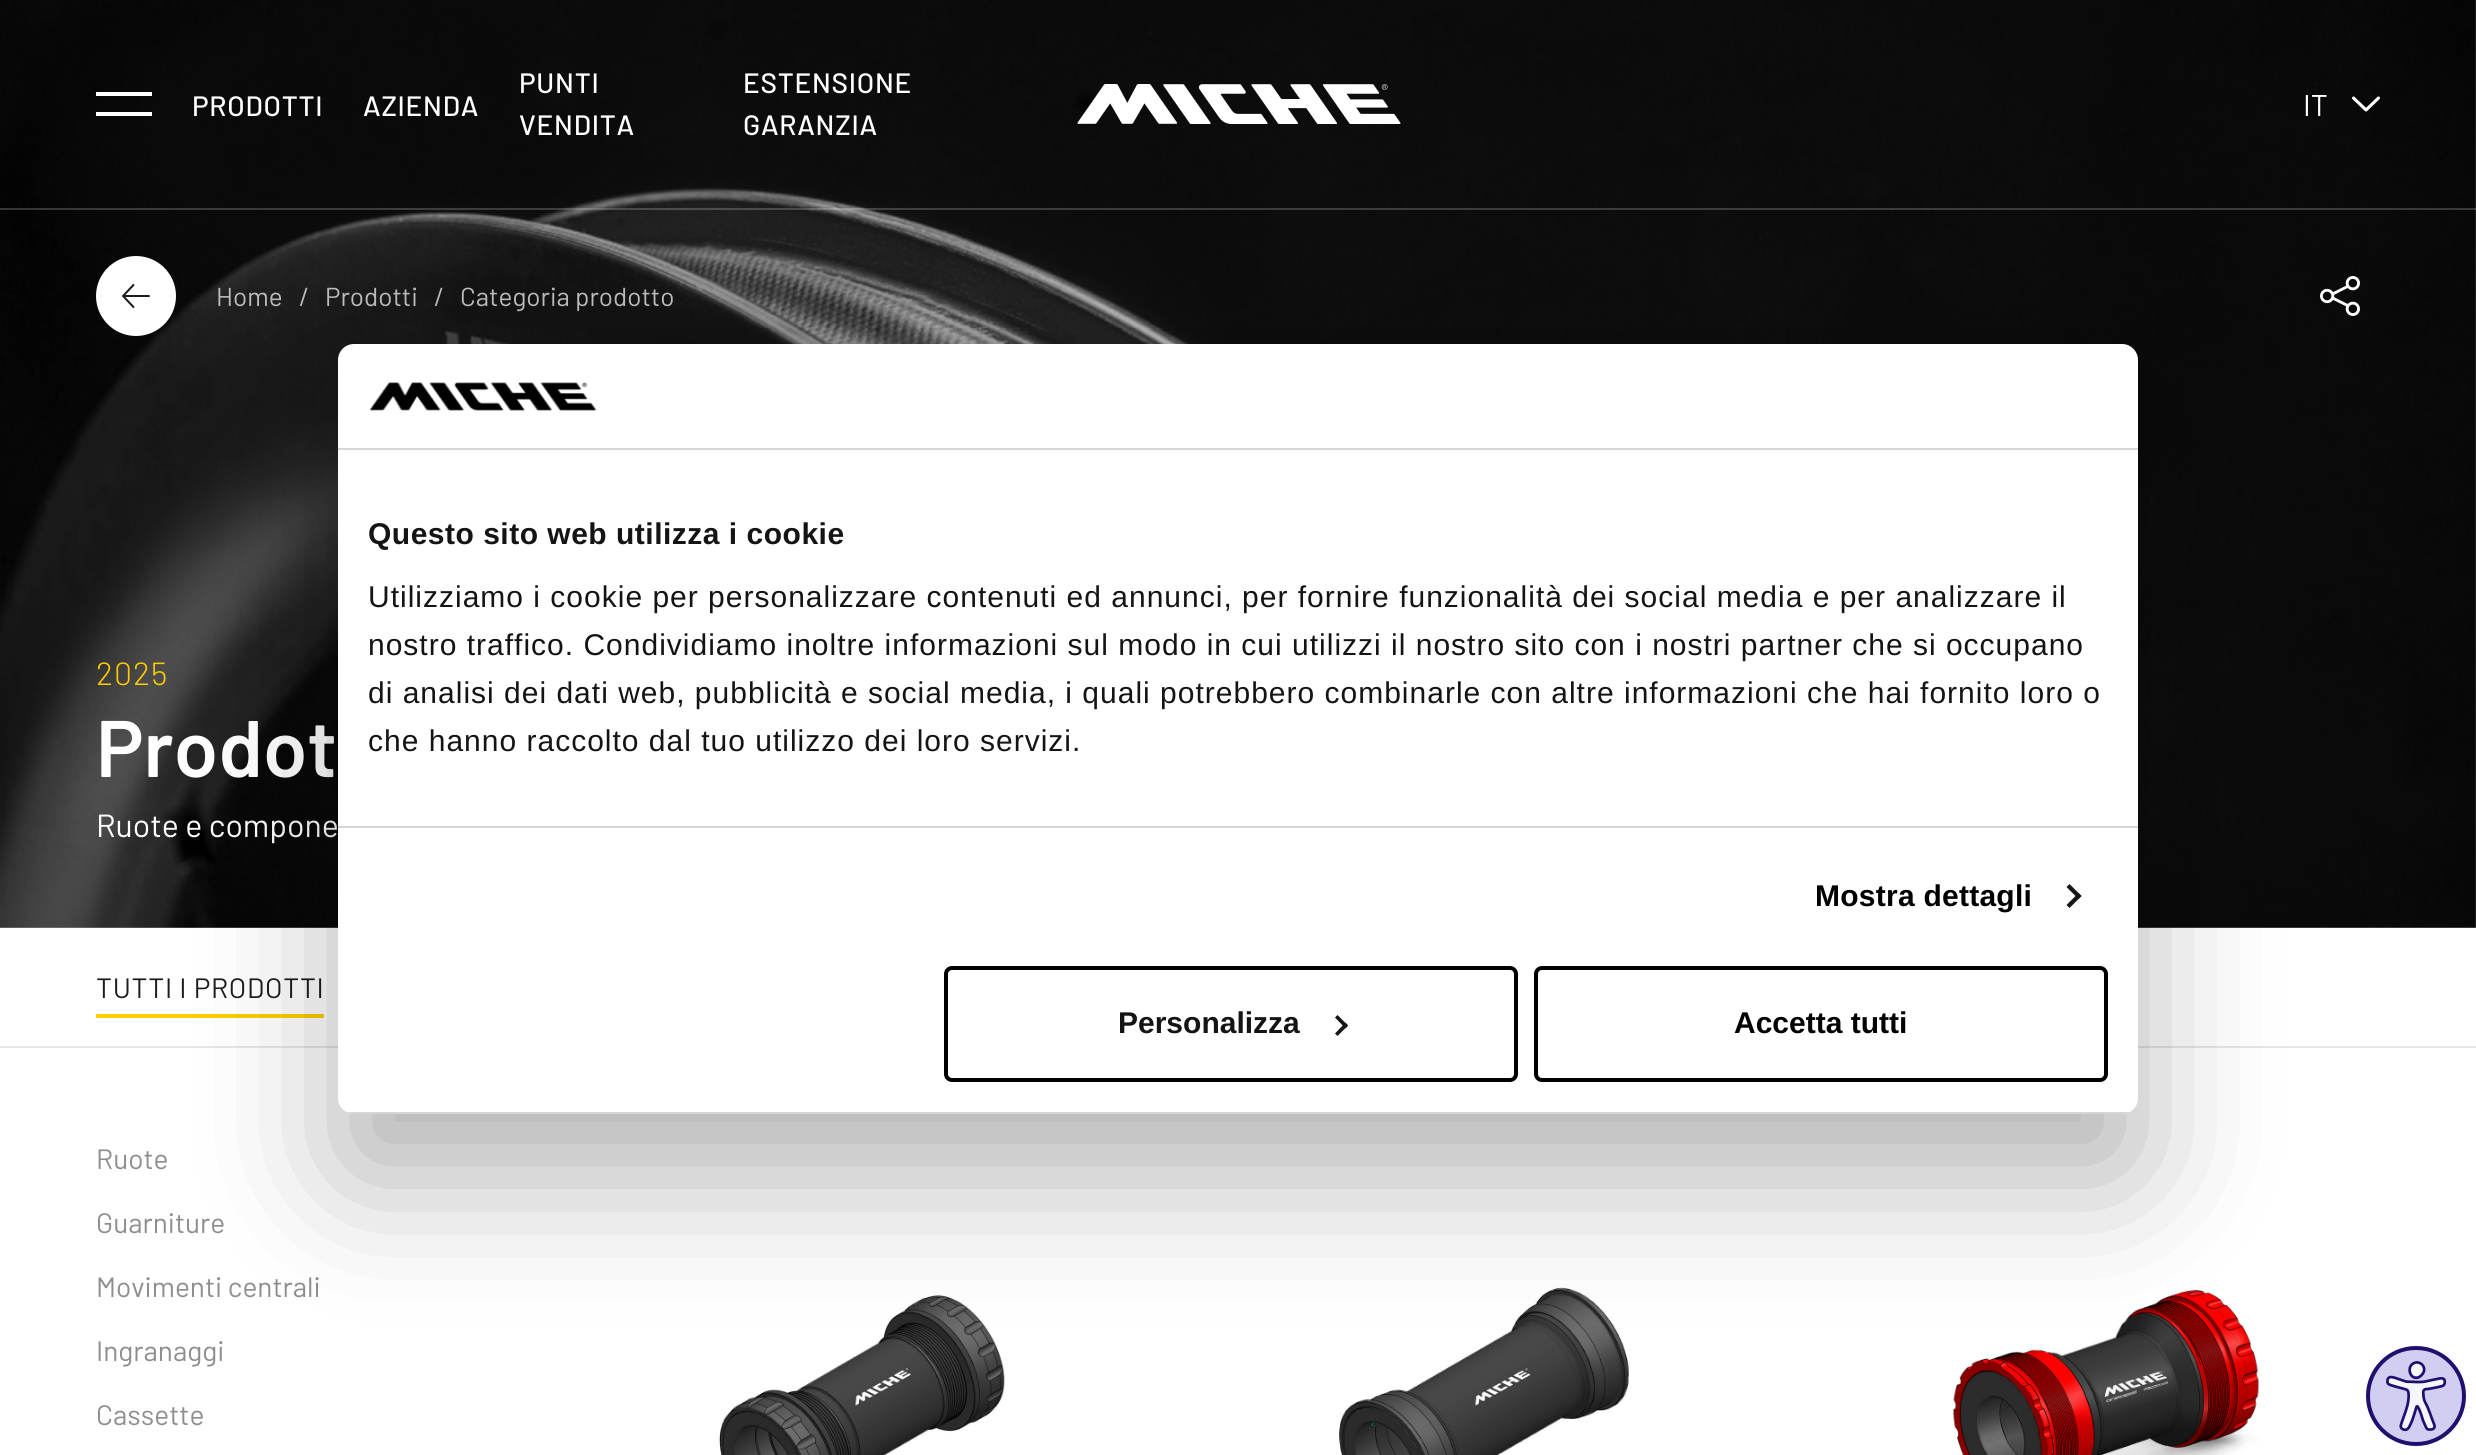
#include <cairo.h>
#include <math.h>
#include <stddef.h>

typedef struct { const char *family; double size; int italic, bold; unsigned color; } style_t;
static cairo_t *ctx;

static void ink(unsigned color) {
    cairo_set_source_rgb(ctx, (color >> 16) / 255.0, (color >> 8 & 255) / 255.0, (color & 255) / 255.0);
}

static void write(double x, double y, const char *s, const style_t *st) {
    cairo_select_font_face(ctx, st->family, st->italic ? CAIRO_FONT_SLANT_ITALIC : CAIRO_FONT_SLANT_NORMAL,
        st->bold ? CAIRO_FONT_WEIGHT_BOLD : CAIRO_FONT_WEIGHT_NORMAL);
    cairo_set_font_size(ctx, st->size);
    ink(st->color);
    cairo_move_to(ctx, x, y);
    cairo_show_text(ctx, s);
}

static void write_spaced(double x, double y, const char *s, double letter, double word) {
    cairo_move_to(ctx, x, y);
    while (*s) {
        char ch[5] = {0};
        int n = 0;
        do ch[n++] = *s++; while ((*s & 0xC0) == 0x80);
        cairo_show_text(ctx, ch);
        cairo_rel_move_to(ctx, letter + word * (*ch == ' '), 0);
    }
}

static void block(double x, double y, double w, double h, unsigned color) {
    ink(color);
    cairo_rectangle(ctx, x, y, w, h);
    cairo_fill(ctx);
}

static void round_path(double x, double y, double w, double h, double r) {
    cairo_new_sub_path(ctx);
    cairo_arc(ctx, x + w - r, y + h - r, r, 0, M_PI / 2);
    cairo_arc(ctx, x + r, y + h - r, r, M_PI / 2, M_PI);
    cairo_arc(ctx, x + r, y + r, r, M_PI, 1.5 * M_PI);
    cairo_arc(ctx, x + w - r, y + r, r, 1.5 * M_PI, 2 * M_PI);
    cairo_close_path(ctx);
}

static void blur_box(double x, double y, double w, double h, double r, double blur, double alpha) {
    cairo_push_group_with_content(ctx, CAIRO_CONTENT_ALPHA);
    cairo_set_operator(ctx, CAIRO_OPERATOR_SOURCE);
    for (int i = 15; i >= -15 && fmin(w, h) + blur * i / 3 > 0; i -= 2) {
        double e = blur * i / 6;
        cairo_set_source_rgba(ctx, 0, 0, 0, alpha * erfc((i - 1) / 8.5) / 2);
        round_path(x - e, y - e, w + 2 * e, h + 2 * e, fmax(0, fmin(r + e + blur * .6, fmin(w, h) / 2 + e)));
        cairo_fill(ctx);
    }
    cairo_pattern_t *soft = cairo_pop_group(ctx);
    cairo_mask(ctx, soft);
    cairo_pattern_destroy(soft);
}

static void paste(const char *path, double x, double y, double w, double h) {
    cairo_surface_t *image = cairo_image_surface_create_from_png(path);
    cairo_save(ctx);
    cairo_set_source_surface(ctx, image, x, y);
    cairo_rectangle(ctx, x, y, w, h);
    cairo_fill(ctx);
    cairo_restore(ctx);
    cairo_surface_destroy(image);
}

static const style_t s1 = {"Barlow", 30, 0, 0, 0xffffff};
static const style_t s2 = {"Barlow", 26, 0, 0, 0xbcbcbc};
static const style_t s3 = {"Barlow SemiBold", 80, 0, 0, 0xffffff};
static const style_t s4 = {"Barlow", 32, 0, 0, 0xffffff};
static const style_t s5 = {"Barlow", 28, 0, 0, 0x8e8e8e};
static const style_t s6 = {"Liberation Sans", 30, 0, 1, 0x141414};
static const style_t s7 = {"Liberation Sans", 30, 0, 1, 0x000000};

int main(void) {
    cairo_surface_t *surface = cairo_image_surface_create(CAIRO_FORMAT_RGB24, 2476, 1455);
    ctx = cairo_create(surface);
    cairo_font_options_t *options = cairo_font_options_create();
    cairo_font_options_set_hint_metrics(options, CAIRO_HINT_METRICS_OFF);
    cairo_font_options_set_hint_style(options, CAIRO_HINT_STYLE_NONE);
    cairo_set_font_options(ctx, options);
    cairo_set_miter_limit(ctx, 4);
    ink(0xffffff);
    cairo_paint(ctx);
    block(0, 0, 2476, 928, 0xcccccc);
    paste("pic3.png", 0, 0, 2476, 928);
    cairo_set_source_rgba(ctx, 1, 1, 1, 0.2);
    cairo_rectangle(ctx, 0, 208, 2476, 2);
    cairo_fill(ctx);
    block(96, 92, 56, 4, 0xffffff);
    block(96, 112, 56, 4, 0xffffff);
    cairo_select_font_face(ctx, "Barlow Medium", CAIRO_FONT_SLANT_NORMAL, CAIRO_FONT_WEIGHT_NORMAL);
    cairo_set_font_size(ctx, 28);
    write_spaced(192, 116, "PRODOTTI", 0.75, 0);
    write_spaced(363, 116, "AZIENDA", 0.75, 0);
    write_spaced(519, 93, "PUNTI", 0.75, 0);
    write_spaced(519, 135, "VENDITA", 0.75, 0);
    write_spaced(743, 93, "ESTENSIONE", 0.75, 0);
    write_spaced(743, 135, "GARANZIA", 0.75, 0);
    paste("pic1.png", 1077, 84, 324, 40);
    write(2303, 116, "IT", &s1);
    paste("pic2.png", 2352, 96, 28, 16);
    cairo_arc(ctx, 136, 296, 40, 0, 2 * M_PI);
    cairo_fill(ctx);
    paste("pic4.png", 122, 284, 28, 24);
    write(216, 306, "Home", &s2);
    write(299, 306, "/", &s2);
    write(325, 306, "Prodotti", &s2);
    write(434, 306, "/", &s2);
    write(460, 306, "Categoria prodotto", &s2);
    paste("pic5.png", 2320, 276, 40, 40);
    cairo_select_font_face(ctx, "Barlow Light", CAIRO_FONT_SLANT_NORMAL, CAIRO_FONT_WEIGHT_NORMAL);
    cairo_set_font_size(ctx, 32);
    ink(0xffcc00);
    write_spaced(96, 685, "2025", 1, 0);
    write(96, 777, "Prodot", &s3);
    write(96, 837, "Ruote e compone", &s4);
    block(0, 1046, 2476, 2, 0xe6e6e6);
    cairo_set_font_size(ctx, 28);
    ink(0x1d1d1d);
    write_spaced(96, 998, "TUTTI I PRODOTTI", 0.75, 0);
    block(96, 1014, 228, 4, 0xffcc00);
    write(96, 1169, "Ruote", &s5);
    write(96, 1233, "Guarniture", &s5);
    write(96, 1297, "Movimenti centrali", &s5);
    write(96, 1361, "Ingranaggi", &s5);
    write(96, 1425, "Cassette", &s5);
    paste("pic6.png", 719, 1295, 286, 160);
    paste("pic7.png", 1339, 1287, 290, 168);
    paste("pic8.png", 1952, 1290, 308, 165);
    ink(0x000000);
    blur_box(338, 408, 1800, 770, 16, 68, 0.3);
    ink(0xffffff);
    round_path(338, 344, 1800, 770, 16);
    cairo_fill(ctx);
    block(338, 448, 1800, 2, 0xd6d6d6);
    paste("pic9.png", 369, 382, 228, 29);
    block(338, 826, 1800, 2, 0xd6d6d6);
    cairo_select_font_face(ctx, "Liberation Sans", CAIRO_FONT_SLANT_NORMAL, CAIRO_FONT_WEIGHT_BOLD);
    cairo_set_font_size(ctx, 30);
    ink(0x141414);
    write_spaced(368, 544, "Questo sito web utilizza i cookie", 0.5, 0);
    cairo_select_font_face(ctx, "Liberation Sans", CAIRO_FONT_SLANT_NORMAL, CAIRO_FONT_WEIGHT_NORMAL);
    write_spaced(368, 607, "Utilizziamo i cookie per personalizzare contenuti ed annunci, per fornire funzionalità dei social media e per analizzare il", 1, 0);
    write_spaced(368, 655, "nostro traffico. Condividiamo inoltre informazioni sul modo in cui utilizzi il nostro sito con i nostri partner che si occupano", 1, 0);
    write_spaced(368, 703, "di analisi dei dati web, pubblicità e social media, i quali potrebbero combinarle con altre informazioni che hai fornito loro o", 1, 0);
    write_spaced(368, 751, "che hanno raccolto dal tuo utilizzo dei loro servizi.", 1, 0);
    cairo_select_font_face(ctx, "Liberation Sans", CAIRO_FONT_SLANT_NORMAL, CAIRO_FONT_WEIGHT_BOLD);
    ink(0x000000);
    write_spaced(1815, 906, "Mostra dettagli", 0.25, 0);
    ink(0x141414);
    cairo_new_path(ctx);
    cairo_move_to(ctx, 2069.5, 884);
    cairo_line_to(ctx, 2081.5, 896);
    cairo_line_to(ctx, 2078.5, 899);
    cairo_line_to(ctx, 2066.5, 887);
    cairo_close_path(ctx);
    cairo_fill(ctx);
    cairo_new_path(ctx);
    cairo_move_to(ctx, 2078.5, 893);
    cairo_line_to(ctx, 2081.5, 896);
    cairo_line_to(ctx, 2069.5, 908);
    cairo_line_to(ctx, 2066.5, 905);
    cairo_close_path(ctx);
    cairo_fill(ctx);
    cairo_save(ctx);
    round_path(338, 344, 1800, 770, 16);
    cairo_clip(ctx);
    block(338, 1112, 1800, 2, 0xd6d6d6);
    cairo_restore(ctx);
    round_path(946, 968, 570, 112, 6);
    ink(0x000000);
    cairo_set_line_width(ctx, 4);
    cairo_stroke(ctx);
    write(1118, 1033, "Personalizza", &s6);
    cairo_new_path(ctx);
    cairo_move_to(ctx, 1337.5, 1015);
    cairo_line_to(ctx, 1348, 1025.5);
    cairo_line_to(ctx, 1345.5, 1028.5);
    cairo_line_to(ctx, 1335, 1017.5);
    cairo_close_path(ctx);
    cairo_fill(ctx);
    cairo_new_path(ctx);
    cairo_move_to(ctx, 1345.5, 1022.5);
    cairo_line_to(ctx, 1348, 1025.5);
    cairo_line_to(ctx, 1337.5, 1036);
    cairo_line_to(ctx, 1335, 1033.5);
    cairo_close_path(ctx);
    cairo_fill(ctx);
    round_path(1536, 968, 570, 112, 6);
    ink(0x000000);
    cairo_stroke(ctx);
    write(1734, 1033, "Accetta tutti", &s7);
    ink(0xd0cff2);
    cairo_new_path(ctx);
    cairo_arc(ctx, 2416, 1396, 48, 0, 2 * M_PI);
    cairo_fill_preserve(ctx);
    ink(0x210f70);
    cairo_stroke(ctx);
    paste("pic10.png", 2386, 1361, 61, 71);
    cairo_surface_write_to_png(surface, "screenshot.png");
    cairo_font_options_destroy(options);
    cairo_destroy(ctx);
    cairo_surface_destroy(surface);
    return 0;
}
